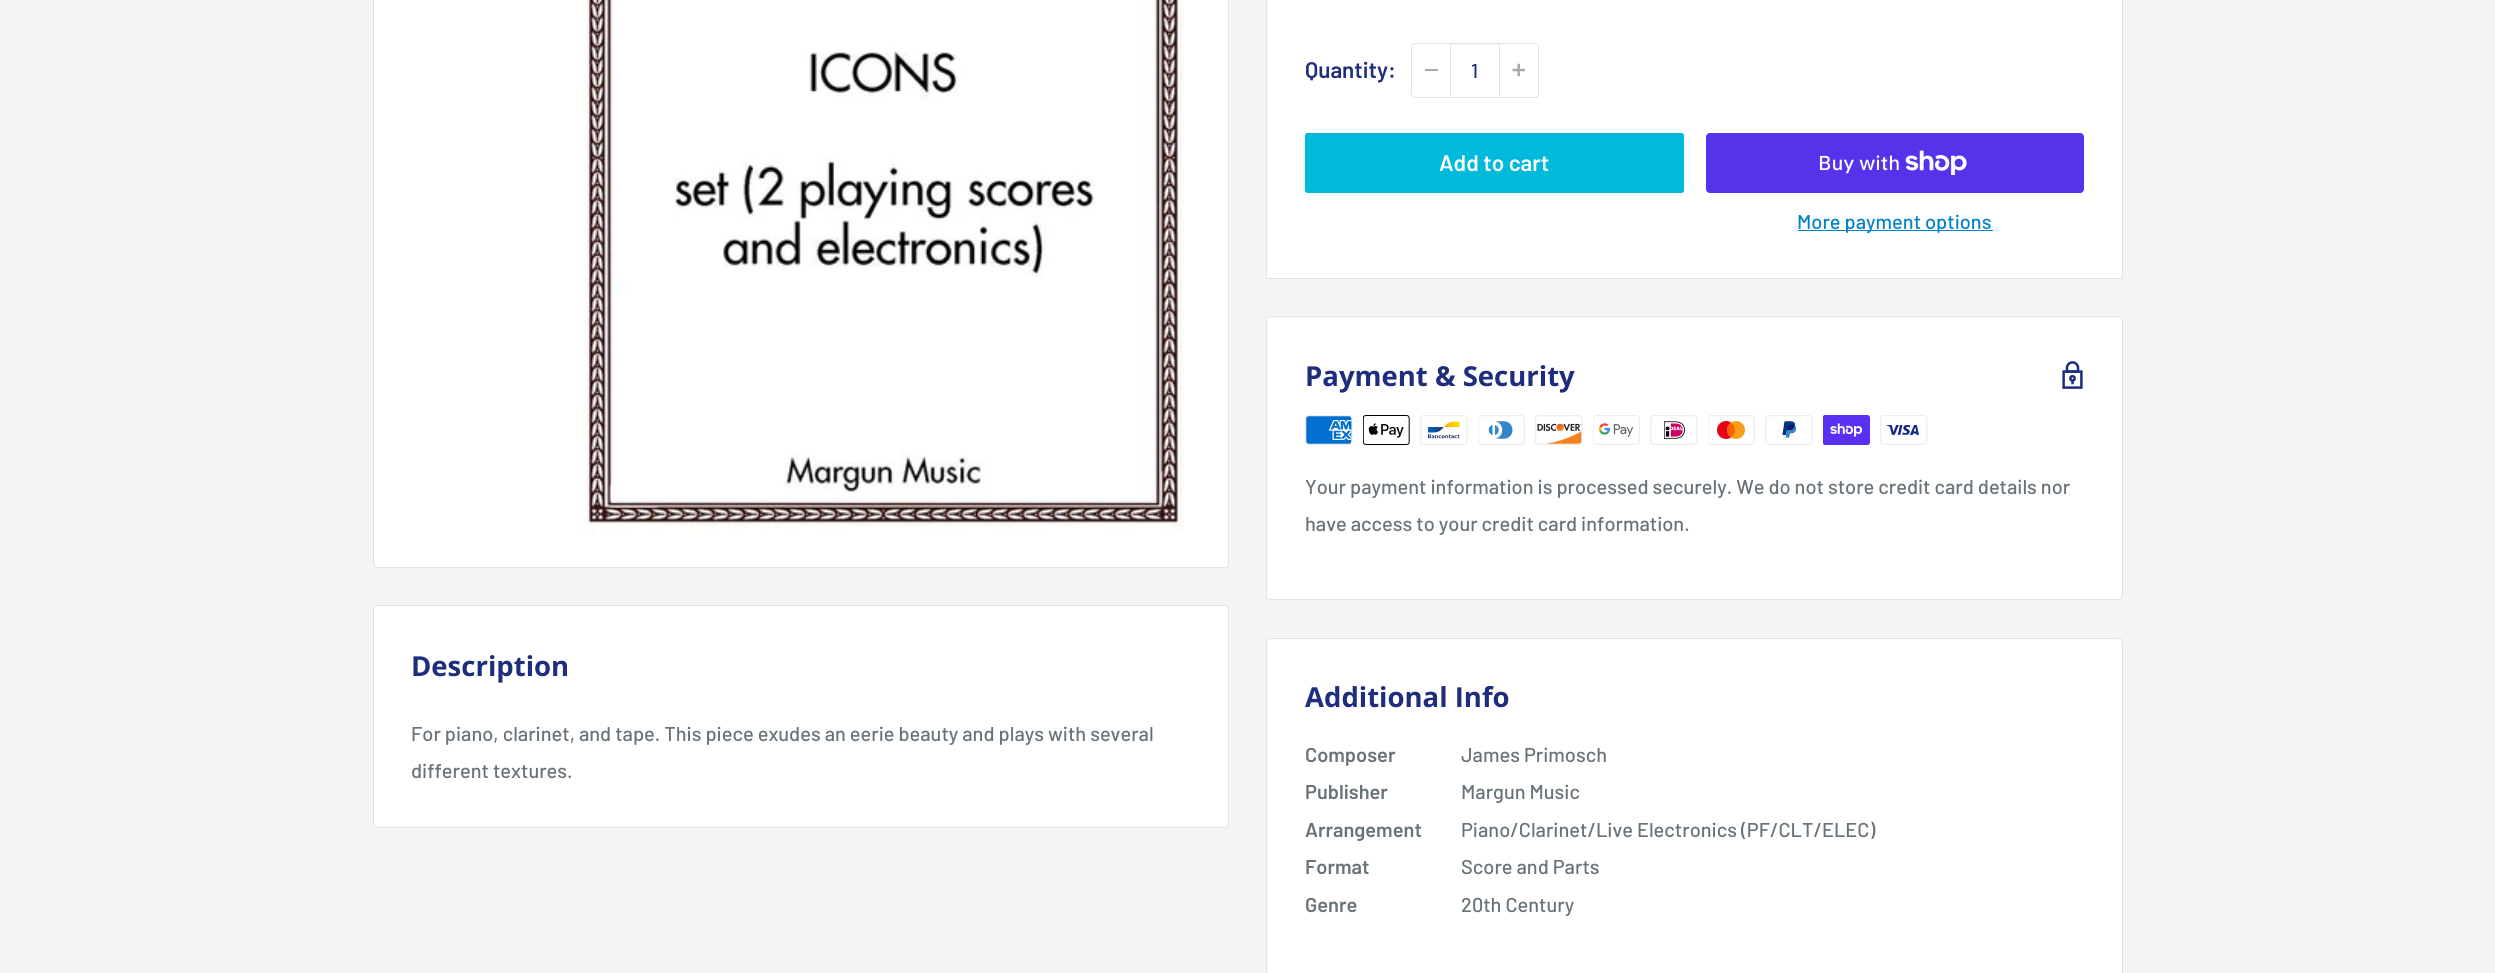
#include <cairo.h>
#include <math.h>
#include <stddef.h>

typedef struct { const char *family; double size; int italic, bold; unsigned color; } style_t;
static cairo_t *ctx;

static void ink(unsigned color) {
    cairo_set_source_rgb(ctx, (color >> 16) / 255.0, (color >> 8 & 255) / 255.0, (color & 255) / 255.0);
}

static void write(double x, double y, const char *s, const style_t *st) {
    cairo_select_font_face(ctx, st->family, st->italic ? CAIRO_FONT_SLANT_ITALIC : CAIRO_FONT_SLANT_NORMAL,
        st->bold ? CAIRO_FONT_WEIGHT_BOLD : CAIRO_FONT_WEIGHT_NORMAL);
    cairo_set_font_size(ctx, st->size);
    ink(st->color);
    cairo_move_to(ctx, x, y);
    cairo_show_text(ctx, s);
}

static void block(double x, double y, double w, double h, unsigned color) {
    ink(color);
    cairo_rectangle(ctx, x, y, w, h);
    cairo_fill(ctx);
}

static void round_path(double x, double y, double w, double h, double r) {
    cairo_new_sub_path(ctx);
    cairo_arc(ctx, x + w - r, y + h - r, r, 0, M_PI / 2);
    cairo_arc(ctx, x + r, y + h - r, r, M_PI / 2, M_PI);
    cairo_arc(ctx, x + r, y + r, r, M_PI, 1.5 * M_PI);
    cairo_arc(ctx, x + w - r, y + r, r, 1.5 * M_PI, 2 * M_PI);
    cairo_close_path(ctx);
}

static void paste(const char *path, double x, double y, double w, double h) {
    cairo_surface_t *image = cairo_image_surface_create_from_png(path);
    cairo_save(ctx);
    cairo_set_source_surface(ctx, image, x, y);
    cairo_rectangle(ctx, x, y, w, h);
    cairo_fill(ctx);
    cairo_restore(ctx);
    cairo_surface_destroy(image);
}

static const style_t s1 = {"Barlow SemiBold", 22.5, 0, 0, 0x1e2d7d};
static const style_t s2 = {"Barlow Medium", 20, 0, 0, 0x1e2d7d};
static const style_t s3 = {"Barlow SemiBold", 22.5, 0, 0, 0xffffff};
static const style_t s4 = {"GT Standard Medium", 20, 0, 0, 0xffffff};
static const style_t s5 = {"Barlow Medium", 20, 0, 0, 0x0082c8};
static const style_t s6 = {"Open Sans", 27.5, 0, 1, 0x1e2d7d};
static const style_t s7 = {"Barlow Medium", 20, 0, 0, 0x677279};
static const style_t s8 = {"Barlow SemiBold", 20, 0, 0, 0x677279};

int main(void) {
    cairo_surface_t *surface = cairo_image_surface_create(CAIRO_FORMAT_RGB24, 2495, 973);
    ctx = cairo_create(surface);
    cairo_font_options_t *options = cairo_font_options_create();
    cairo_font_options_set_hint_metrics(options, CAIRO_HINT_METRICS_OFF);
    cairo_font_options_set_hint_style(options, CAIRO_HINT_STYLE_NONE);
    cairo_set_font_options(ctx, options);
    cairo_set_miter_limit(ctx, 4);
    ink(0xf3f5f6);
    cairo_paint(ctx);
    ink(0xffffff);
    round_path(373.5, -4.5, 855, 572, 3.5);
    cairo_fill_preserve(ctx);
    ink(0xe1e3e4);
    cairo_set_line_width(ctx, 1);
    cairo_stroke(ctx);
    paste("pic1.png", 577, 0, 607, 535);
    ink(0xffffff);
    cairo_rectangle(ctx, 1266.5, -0.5, 856, 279);
    cairo_fill_preserve(ctx);
    ink(0xe1e3e4);
    cairo_stroke(ctx);
    write(1305, 78, "Quantity:", &s1);
    round_path(1411.5, 43.5, 127, 54, 3.5);
    ink(0xe1e3e4);
    cairo_stroke(ctx);
    block(1425, 69, 13, 2, 0xa4aaaf);
    block(1451, 44, 48, 1, 0xf3f4f4);
    block(1499, 44, 1, 52, 0xe1e3e4);
    block(1450, 44, 1, 52, 0xe1e3e4);
    write(1471, 78, "1", &s2);
    paste("pic2.png", 1512, 63, 13, 14);
    ink(0x00badb);
    round_path(1305, 133, 379, 60, 2.5);
    cairo_fill(ctx);
    write(1439, 171, "Add to cart", &s3);
    ink(0x5433eb);
    round_path(1706, 133, 378, 60, 4);
    cairo_fill(ctx);
    write(1818, 170, "Buy with", &s4);
    paste("pic3.png", 1905, 150, 62, 25);
    block(1798, 230, 195, 1, 0x0082c8);
    write(1797, 229, "More payment options", &s5);
    ink(0xffffff);
    round_path(1266.5, 316.5, 856, 283, 3.5);
    cairo_fill_preserve(ctx);
    ink(0xe1e3e4);
    cairo_stroke(ctx);
    write(1305, 386, "Payment & Security", &s6);
    paste("pic4.png", 2062, 361, 21, 28);
    paste("pic5.png", 1305, 415, 48, 30);
    paste("pic6.png", 1363, 415, 47, 30);
    paste("pic7.png", 1420, 415, 48, 30);
    paste("pic8.png", 1478, 415, 47, 30);
    paste("pic9.png", 1535, 415, 48, 30);
    paste("pic10.png", 1593, 415, 47, 30);
    paste("pic11.png", 1650, 415, 48, 30);
    paste("pic12.png", 1708, 415, 47, 30);
    paste("pic13.png", 1765, 415, 48, 30);
    paste("pic14.png", 1823, 415, 47, 30);
    paste("pic15.png", 1880, 415, 48, 30);
    write(1305, 494, "Your payment information is processed securely. We do not store credit card details nor", &s7);
    write(1305, 531, "have access to your credit card information.", &s7);
    ink(0xffffff);
    round_path(1266.5, 638.5, 856, 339, 3.5);
    cairo_fill_preserve(ctx);
    ink(0xe1e3e4);
    cairo_stroke(ctx);
    write(1305, 707, "Additional Info", &s6);
    write(1305, 762, "Composer", &s8);
    write(1461, 762, "James Primosch", &s7);
    write(1305, 799, "Publisher", &s8);
    write(1461, 799, "Margun Music", &s7);
    write(1305, 837, "Arrangement", &s8);
    write(1461, 837, "Piano/Clarinet/Live Electronics (PF/CLT/ELEC)", &s7);
    write(1305, 874, "Format", &s8);
    write(1461, 874, "Score and Parts", &s7);
    write(1305, 912, "Genre", &s8);
    write(1461, 912, "20th Century", &s7);
    ink(0xffffff);
    round_path(373.5, 605.5, 855, 222, 3.5);
    cairo_fill_preserve(ctx);
    ink(0xe1e3e4);
    cairo_stroke(ctx);
    write(411, 676, "Description", &s6);
    write(411, 741, "For piano, clarinet, and tape. This piece exudes an eerie beauty and plays with several", &s7);
    write(411, 778, "different textures.", &s7);
    cairo_surface_write_to_png(surface, "screenshot.png");
    cairo_font_options_destroy(options);
    cairo_destroy(ctx);
    cairo_surface_destroy(surface);
    return 0;
}
